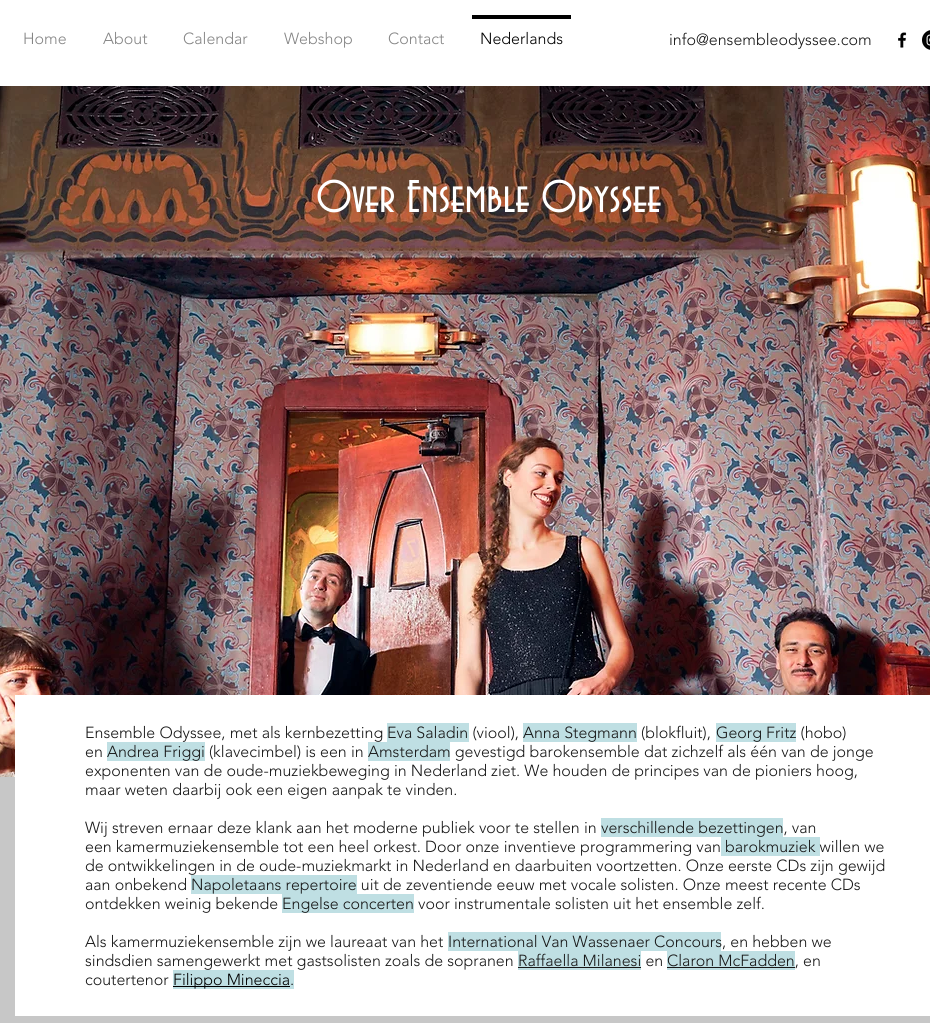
#include <cairo.h>
#include <math.h>
#include <stddef.h>

typedef struct { const char *family; double size; int italic, bold; unsigned color; } style_t;
static cairo_t *ctx;

static void ink(unsigned color) {
    cairo_set_source_rgb(ctx, (color >> 16) / 255.0, (color >> 8 & 255) / 255.0, (color & 255) / 255.0);
}

static void write(double x, double y, const char *s, const style_t *st) {
    cairo_select_font_face(ctx, st->family, st->italic ? CAIRO_FONT_SLANT_ITALIC : CAIRO_FONT_SLANT_NORMAL,
        st->bold ? CAIRO_FONT_WEIGHT_BOLD : CAIRO_FONT_WEIGHT_NORMAL);
    cairo_set_font_size(ctx, st->size);
    ink(st->color);
    cairo_move_to(ctx, x, y);
    cairo_show_text(ctx, s);
}

static void block(double x, double y, double w, double h, unsigned color) {
    ink(color);
    cairo_rectangle(ctx, x, y, w, h);
    cairo_fill(ctx);
}

static void paste(const char *path, double x, double y, double w, double h) {
    cairo_surface_t *image = cairo_image_surface_create_from_png(path);
    cairo_save(ctx);
    cairo_set_source_surface(ctx, image, x, y);
    cairo_rectangle(ctx, x, y, w, h);
    cairo_fill(ctx);
    cairo_restore(ctx);
    cairo_surface_destroy(image);
}

static const style_t s1 = {"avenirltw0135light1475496 Light", 16, 0, 0, 0x858585};
static const style_t s2 = {"avenirltw0135light1475496 Light", 16, 0, 0, 0x000000};
static const style_t s3 = {"avenirltw0135light1475496 Light", 16, 0, 0, 0x181818};
static const style_t s4 = {"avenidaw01", 48, 0, 0, 0xffffff};

int main(void) {
    cairo_surface_t *surface = cairo_image_surface_create(CAIRO_FORMAT_RGB24, 930, 1023);
    ctx = cairo_create(surface);
    cairo_font_options_t *options = cairo_font_options_create();
    cairo_font_options_set_hint_metrics(options, CAIRO_HINT_METRICS_OFF);
    cairo_font_options_set_hint_style(options, CAIRO_HINT_STYLE_NONE);
    cairo_set_font_options(ctx, options);
    cairo_set_miter_limit(ctx, 4);
    ink(0xffffff);
    cairo_paint(ctx);
    write(23, 44, "Home", &s1);
    write(103, 44, "About", &s1);
    write(183, 44, "Calendar", &s1);
    write(284, 44, "Webshop", &s1);
    write(388, 44, "Contact", &s1);
    block(472, 15, 99, 4, 0x000000);
    write(480, 44, "Nederlands", &s2);
    write(669, 45, "info@ensembleodyssee.com", &s3);
    paste("pic1.png", 898, 32, 9, 16);
    paste("pic2.png", 922, 30, 8, 20);
    paste("pic3.png", 0, 86, 930, 691);
    block(0, 777, 930, 246, 0xc7c7c7);
    block(15, 695, 915, 321, 0xffffff);
    write(316, 212, "Over Ensemble Odyssee", &s4);
    write(85, 738, "Ensemble Odyssee, met als kernbezetting", &s3);
    block(387, 723, 82, 19, 0xbfdfe3);
    write(387, 738, "Eva Saladin (viool),", &s3);
    block(523, 723, 114, 19, 0xbfdfe3);
    write(523, 738, "Anna Stegmann (blokfluit),", &s3);
    block(716, 723, 80, 19, 0xbfdfe3);
    write(716, 738, "Georg Fritz (hobo)", &s3);
    write(85, 757, "en", &s3);
    block(107, 742, 98, 19, 0xbfdfe3);
    write(107, 757, "Andrea Friggi (klavecimbel) is een in", &s3);
    block(368, 742, 82, 19, 0xbfdfe3);
    write(368, 757, "Amsterdam gevestigd barokensemble dat zichzelf als één van de jonge", &s3);
    write(85, 776, "exponenten van de oude-muziekbeweging in Nederland ziet. We houden de principes van de pioniers hoog,", &s3);
    write(85, 795, "maar weten daarbij ook een eigen aanpak te vinden.", &s3);
    write(85, 833, "Wij streven ernaar deze klank aan het moderne publiek voor te stellen in", &s3);
    block(601, 818, 182, 19, 0xbfdfe3);
    write(601, 833, "verschillende bezettingen, van", &s3);
    write(85, 852, "een kamermuziekensemble tot een heel orkest. Door onze inventieve programmering van", &s3);
    block(721, 837, 99, 19, 0xbfdfe3);
    write(725, 852, "barokmuziek willen we", &s3);
    write(85, 871, "de ontwikkelingen in de oude-muziekmarkt in Nederland en daarbuiten voortzetten. Onze eerste CDs zijn gewijd", &s3);
    write(85, 890, "aan onbekend", &s3);
    block(191, 875, 166, 19, 0xbfdfe3);
    write(191, 890, "Napoletaans repertoire uit de zeventiende eeuw met vocale solisten. Onze meest recente CDs", &s3);
    write(85, 909, "ontdekken weinig bekende", &s3);
    block(282, 894, 132, 19, 0xbfdfe3);
    write(282, 909, "Engelse concerten voor instrumentale solisten uit het ensemble zelf.", &s3);
    write(85, 947, "Als kamermuziekensemble zijn we laureaat van het", &s3);
    block(448, 932, 273, 19, 0xbfdfe3);
    write(448, 947, "International Van Wassenaer Concours, en hebben we", &s3);
    write(85, 966, "sindsdien samengewerkt met gastsolisten zoals de sopranen", &s3);
    block(518, 951, 123, 19, 0xbfdfe3);
    write(518, 966, "Raffaella Milanesi en", &s3);
    block(518, 967, 123, 1, 0x181818);
    block(667, 951, 128, 19, 0xbfdfe3);
    block(667, 967, 128, 1, 0x181818);
    write(667, 966, "Claron McFadden, en", &s3);
    write(85, 985, "coutertenor", &s3);
    block(173, 970, 121, 19, 0xbfdfe3);
    block(173, 986, 117, 1, 0x000000);
    write(173, 985, "Filippo Mineccia", &s2);
    write(290, 985, ".", &s3);
    cairo_surface_write_to_png(surface, "screenshot.png");
    cairo_font_options_destroy(options);
    cairo_destroy(ctx);
    cairo_surface_destroy(surface);
    return 0;
}
